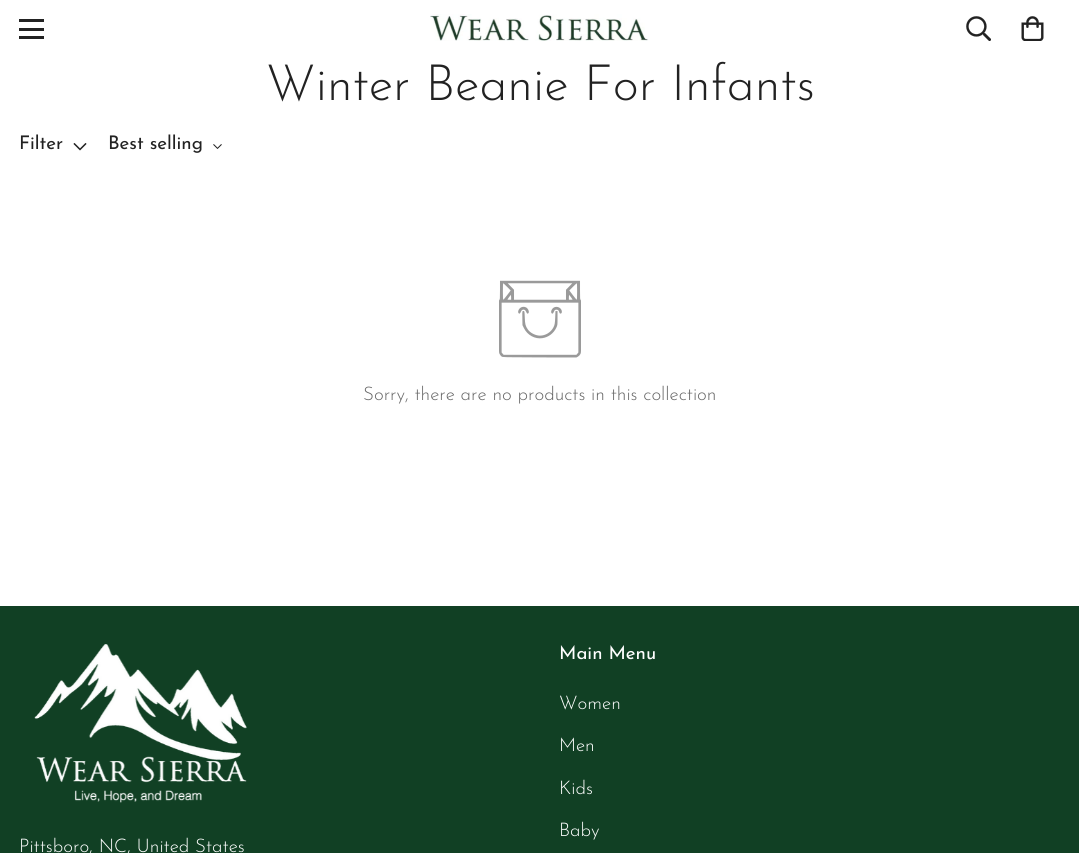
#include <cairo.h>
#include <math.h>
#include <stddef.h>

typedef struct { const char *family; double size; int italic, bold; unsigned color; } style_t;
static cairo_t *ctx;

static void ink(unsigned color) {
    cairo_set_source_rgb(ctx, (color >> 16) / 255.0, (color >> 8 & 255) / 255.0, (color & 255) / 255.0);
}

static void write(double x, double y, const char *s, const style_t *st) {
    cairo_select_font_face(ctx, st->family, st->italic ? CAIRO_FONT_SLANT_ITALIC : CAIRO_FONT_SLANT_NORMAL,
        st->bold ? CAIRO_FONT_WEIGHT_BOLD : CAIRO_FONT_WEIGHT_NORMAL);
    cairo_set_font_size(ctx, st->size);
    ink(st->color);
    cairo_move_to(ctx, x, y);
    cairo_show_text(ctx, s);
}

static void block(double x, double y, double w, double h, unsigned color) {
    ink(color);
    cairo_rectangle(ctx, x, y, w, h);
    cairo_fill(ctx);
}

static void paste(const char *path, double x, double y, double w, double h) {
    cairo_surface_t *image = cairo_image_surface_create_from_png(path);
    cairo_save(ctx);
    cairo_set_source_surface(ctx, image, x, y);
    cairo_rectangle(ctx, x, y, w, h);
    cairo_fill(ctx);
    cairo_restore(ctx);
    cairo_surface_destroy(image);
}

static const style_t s1 = {"Josefin Sans Light", 50, 0, 0, 0x222222};
static const style_t s2 = {"Josefin Sans", 18.75, 0, 0, 0x222222};
static const style_t s3 = {"Josefin Sans Light", 18.75, 0, 0, 0x666666};
static const style_t s4 = {"Josefin Sans", 18.75, 0, 0, 0xffffff};
static const style_t s5 = {"Josefin Sans Light", 18.75, 0, 0, 0xffffff};

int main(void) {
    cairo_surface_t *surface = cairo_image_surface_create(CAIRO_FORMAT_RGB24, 1079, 853);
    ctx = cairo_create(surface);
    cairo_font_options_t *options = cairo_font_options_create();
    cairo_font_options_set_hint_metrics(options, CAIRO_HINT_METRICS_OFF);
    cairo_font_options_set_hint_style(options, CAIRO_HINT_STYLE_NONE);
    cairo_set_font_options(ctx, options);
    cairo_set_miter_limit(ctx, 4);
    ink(0xffffff);
    cairo_paint(ctx);
    block(19, 28, 25, 3, 0x222222);
    block(19, 19, 25, 3, 0x222222);
    block(19, 36, 25, 3, 0x222222);
    paste("pic1.png", 430, 14, 219, 27);
    paste("pic2.png", 966, 16, 25, 25);
    paste("pic3.png", 1021, 16, 23, 25);
    write(266, 100, "Winter Beanie For Infants", &s1);
    write(19, 149, "Filter", &s2);
    paste("pic4.png", 73, 143, 14, 8);
    write(108, 149, "Best selling", &s2);
    paste("pic5.png", 213, 144, 9, 5);
    paste("pic6.png", 499, 280, 82, 78);
    write(363, 400, "Sorry, there are no products in this collection", &s3);
    block(0, 606, 1079, 247, 0x114024);
    write(559, 659, "Main Menu", &s4);
    write(559, 709, "Women", &s5);
    write(559, 751, "Men", &s5);
    write(559, 794, "Kids", &s5);
    write(559, 836, "Baby", &s5);
    paste("pic7.png", 34, 644, 213, 159);
    write(19, 852, "Pittsboro, NC, United States", &s5);
    cairo_surface_write_to_png(surface, "screenshot.png");
    cairo_font_options_destroy(options);
    cairo_destroy(ctx);
    cairo_surface_destroy(surface);
    return 0;
}
